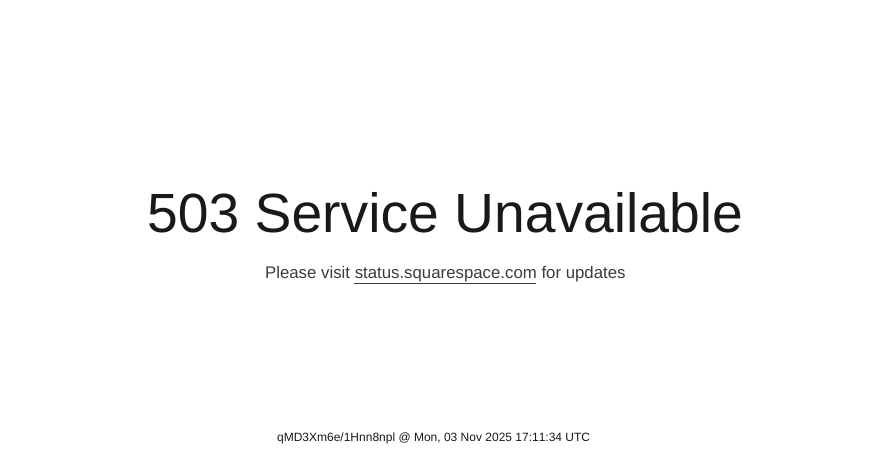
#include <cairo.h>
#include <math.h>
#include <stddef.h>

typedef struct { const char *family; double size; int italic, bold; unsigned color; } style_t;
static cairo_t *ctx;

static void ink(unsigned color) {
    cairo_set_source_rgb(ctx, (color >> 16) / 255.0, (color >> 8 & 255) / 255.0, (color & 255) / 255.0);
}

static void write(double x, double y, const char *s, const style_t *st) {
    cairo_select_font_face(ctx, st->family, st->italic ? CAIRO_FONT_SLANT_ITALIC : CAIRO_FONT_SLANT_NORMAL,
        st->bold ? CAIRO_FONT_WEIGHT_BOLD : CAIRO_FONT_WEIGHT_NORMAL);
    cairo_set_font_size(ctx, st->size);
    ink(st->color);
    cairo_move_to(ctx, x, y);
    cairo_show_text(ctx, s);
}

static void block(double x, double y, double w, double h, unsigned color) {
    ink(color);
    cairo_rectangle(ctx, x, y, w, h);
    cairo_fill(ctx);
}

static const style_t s1 = {"Liberation Sans", 55.25, 0, 0, 0x191919};
static const style_t s2 = {"Liberation Sans", 16.8, 0, 0, 0x3a3a3a};
static const style_t s3 = {"Liberation Sans", 12, 0, 0, 0x191919};

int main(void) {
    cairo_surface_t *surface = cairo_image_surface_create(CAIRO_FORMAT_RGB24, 890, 471);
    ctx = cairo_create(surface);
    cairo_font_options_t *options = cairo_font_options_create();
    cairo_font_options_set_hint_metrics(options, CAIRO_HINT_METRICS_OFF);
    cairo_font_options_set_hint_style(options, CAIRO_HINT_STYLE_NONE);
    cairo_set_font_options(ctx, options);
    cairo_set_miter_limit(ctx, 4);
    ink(0xffffff);
    cairo_paint(ctx);
    write(147, 232, "503 Service Unavailable", &s1);
    write(265, 278, "Please visit status.squarespace.com for updates", &s2);
    block(354, 283, 182, 1, 0x3a3a3a);
    write(277, 441, "qMD3Xm6e/1Hnn8npl @ Mon, 03 Nov 2025 17:11:34 UTC", &s3);
    cairo_surface_write_to_png(surface, "screenshot.png");
    cairo_font_options_destroy(options);
    cairo_destroy(ctx);
    cairo_surface_destroy(surface);
    return 0;
}
